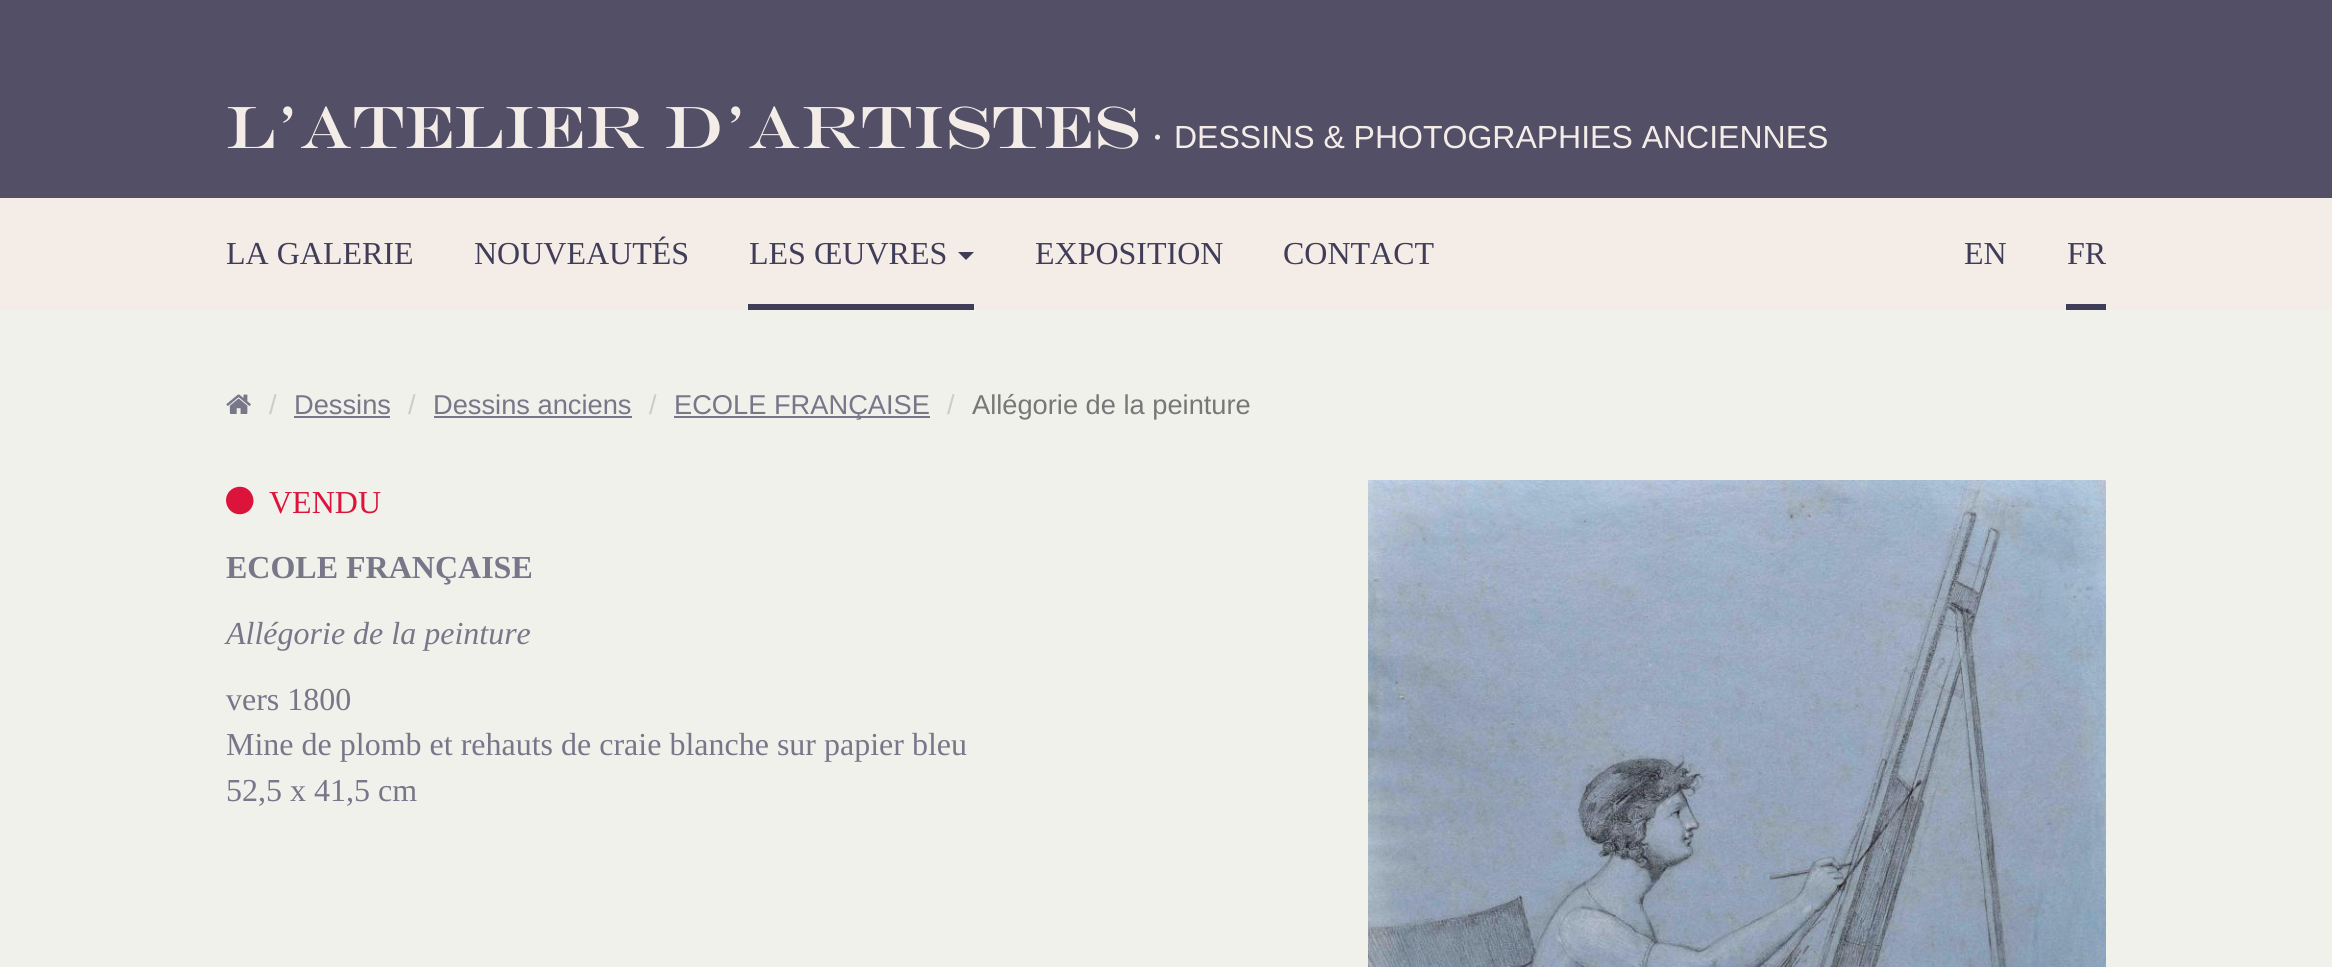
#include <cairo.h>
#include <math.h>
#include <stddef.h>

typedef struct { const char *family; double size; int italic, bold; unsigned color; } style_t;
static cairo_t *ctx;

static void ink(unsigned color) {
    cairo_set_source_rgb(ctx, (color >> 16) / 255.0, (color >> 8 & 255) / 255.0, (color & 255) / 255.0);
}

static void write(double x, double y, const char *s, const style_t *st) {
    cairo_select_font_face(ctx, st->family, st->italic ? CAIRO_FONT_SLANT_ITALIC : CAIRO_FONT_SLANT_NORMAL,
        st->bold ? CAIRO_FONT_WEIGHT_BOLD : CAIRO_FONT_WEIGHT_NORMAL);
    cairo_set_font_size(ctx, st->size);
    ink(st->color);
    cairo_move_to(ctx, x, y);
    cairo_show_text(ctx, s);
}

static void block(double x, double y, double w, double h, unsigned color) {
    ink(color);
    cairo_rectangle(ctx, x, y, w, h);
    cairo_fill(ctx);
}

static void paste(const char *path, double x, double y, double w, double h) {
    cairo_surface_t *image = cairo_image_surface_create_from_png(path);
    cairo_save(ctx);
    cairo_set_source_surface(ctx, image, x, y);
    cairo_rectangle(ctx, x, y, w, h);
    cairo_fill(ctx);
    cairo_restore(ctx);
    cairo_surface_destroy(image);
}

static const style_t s1 = {"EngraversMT", 60, 0, 0, 0xf4ece7};
static const style_t s2 = {"EngraversMT", 32, 0, 0, 0xf4ece7};
static const style_t s3 = {"Liberation Sans", 32, 0, 0, 0xf4ece7};
static const style_t s4 = {"Liberation Serif", 32, 0, 0, 0x403d58};
static const style_t s5 = {"Liberation Sans", 27.25, 0, 0, 0xcccccc};
static const style_t s6 = {"Liberation Sans", 27.25, 0, 0, 0x787689};
static const style_t s7 = {"Liberation Sans", 27.25, 0, 0, 0x777777};
static const style_t s8 = {"Liberation Serif", 32, 0, 0, 0xdc143c};
static const style_t s9 = {"Liberation Serif", 32, 0, 1, 0x787689};
static const style_t s10 = {"Liberation Serif", 32, 1, 0, 0x787689};
static const style_t s11 = {"Liberation Serif", 32, 0, 0, 0x787689};

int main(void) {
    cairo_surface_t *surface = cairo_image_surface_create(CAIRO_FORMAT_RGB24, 2332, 967);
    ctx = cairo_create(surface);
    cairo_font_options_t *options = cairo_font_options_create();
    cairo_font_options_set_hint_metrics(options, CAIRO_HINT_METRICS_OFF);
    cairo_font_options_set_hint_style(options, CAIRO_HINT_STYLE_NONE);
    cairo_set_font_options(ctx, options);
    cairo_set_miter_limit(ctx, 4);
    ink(0xf0f1eb);
    cairo_paint(ctx);
    block(0, 0, 2332, 198, 0x524f67);
    write(226, 148, "L’Atelier d’Artistes", &s1);
    write(1151, 148, "·", &s2);
    write(1174, 148, "DESSINS & PHOTOGRAPHIES ANCIENNES", &s3);
    block(0, 198, 2332, 112, 0xf4ece7);
    write(226, 264, "LA GALERIE", &s4);
    write(474, 264, "NOUVEAUTÉS", &s4);
    block(748, 304, 226, 6, 0x403d58);
    write(749, 264, "LES ŒUVRES", &s4);
    cairo_new_path(ctx);
    cairo_move_to(ctx, 958, 252);
    cairo_line_to(ctx, 974, 252);
    cairo_line_to(ctx, 966, 260);
    cairo_close_path(ctx);
    cairo_fill(ctx);
    write(1035, 264, "EXPOSITION", &s4);
    write(1283, 264, "CONTACT", &s4);
    write(1964, 264, "EN", &s4);
    block(2066, 304, 40, 6, 0x403d58);
    write(2067, 264, "FR", &s4);
    paste("pic1.png", 226, 394, 25, 20);
    write(269, 414, "/", &s5);
    write(294, 414, "Dessins", &s6);
    block(294, 416, 96, 2, 0x787689);
    write(408, 414, "/", &s5);
    write(433, 414, "Dessins anciens", &s6);
    block(434, 416, 198, 2, 0x787689);
    write(649, 414, "/", &s5);
    block(674, 416, 256, 2, 0x787689);
    write(674, 414, "ECOLE FRANÇAISE", &s6);
    write(947, 414, "/", &s5);
    write(972, 414, "Allégorie de la peinture", &s7);
    ink(0xdc143c);
    cairo_new_path(ctx);
    cairo_move_to(ctx, 251.5, 493.5);
    cairo_curve_to(ctx, 253, 496, 253.5, 499, 253.5, 501.5);
    cairo_curve_to(ctx, 252.5, 515, 234.5, 519, 228, 507.5);
    cairo_curve_to(ctx, 226.5, 505, 226, 502.5, 226, 499.5);
    cairo_curve_to(ctx, 227, 486, 245, 482, 251.5, 493.5);
    cairo_close_path(ctx);
    cairo_fill(ctx);
    write(269, 513, "VENDU", &s8);
    write(226, 578, "ECOLE FRANÇAISE", &s9);
    write(226, 644, "Allégorie de la peinture", &s10);
    write(226, 710, "vers 1800", &s11);
    write(226, 755, "Mine de plomb et rehauts de craie blanche sur papier bleu", &s11);
    write(226, 801, "52,5 x 41,5 cm", &s11);
    paste("pic2.png", 1368, 480, 738, 487);
    cairo_surface_write_to_png(surface, "screenshot.png");
    cairo_font_options_destroy(options);
    cairo_destroy(ctx);
    cairo_surface_destroy(surface);
    return 0;
}
